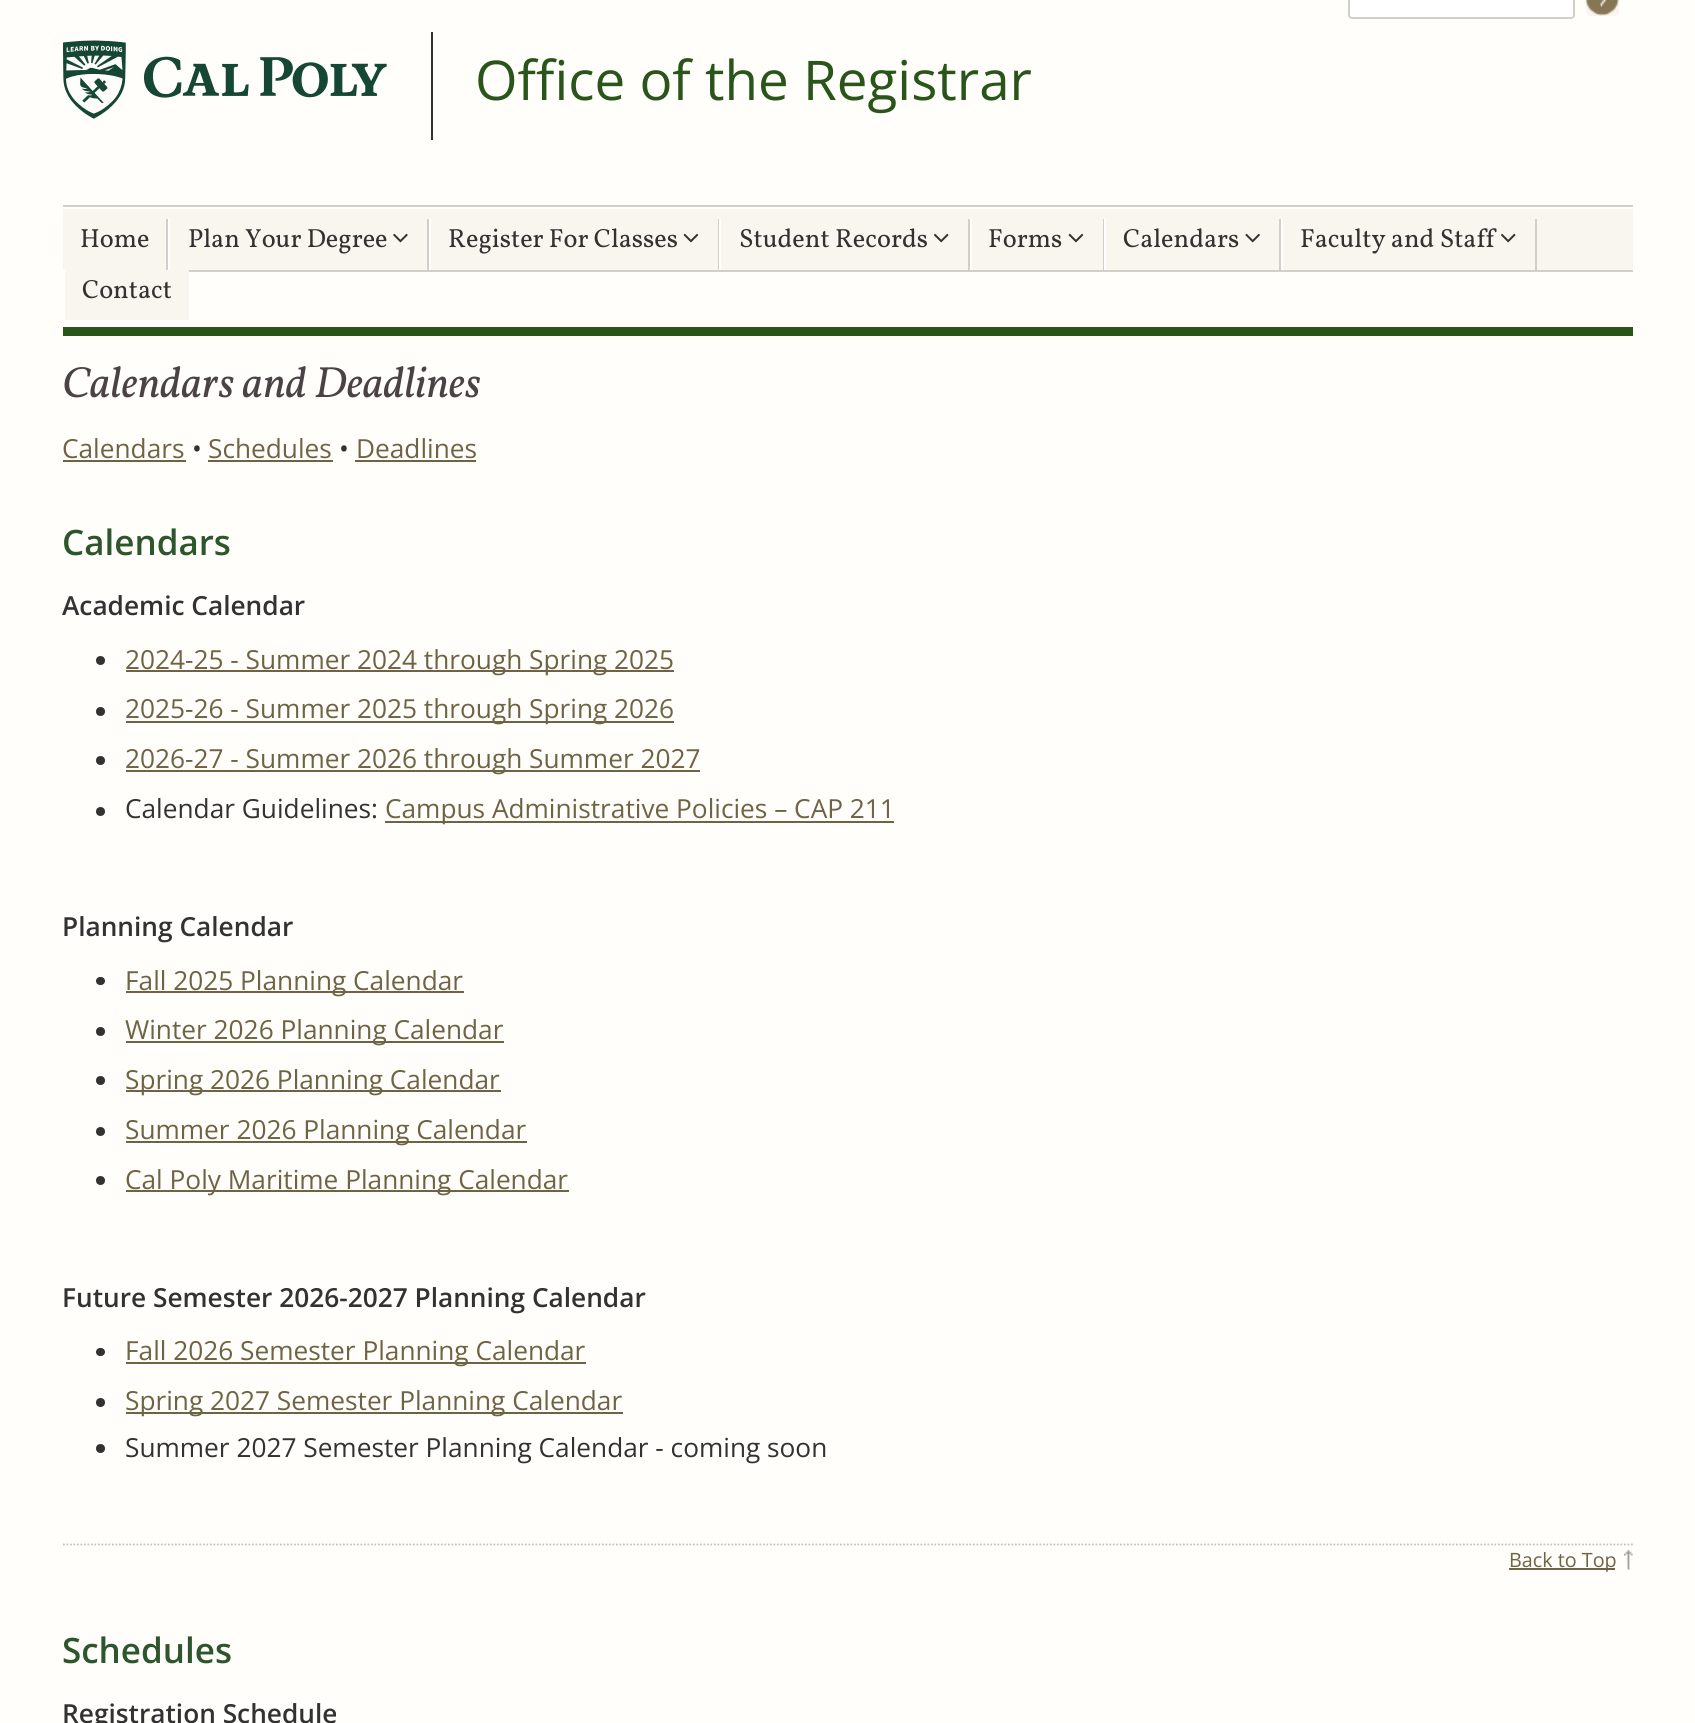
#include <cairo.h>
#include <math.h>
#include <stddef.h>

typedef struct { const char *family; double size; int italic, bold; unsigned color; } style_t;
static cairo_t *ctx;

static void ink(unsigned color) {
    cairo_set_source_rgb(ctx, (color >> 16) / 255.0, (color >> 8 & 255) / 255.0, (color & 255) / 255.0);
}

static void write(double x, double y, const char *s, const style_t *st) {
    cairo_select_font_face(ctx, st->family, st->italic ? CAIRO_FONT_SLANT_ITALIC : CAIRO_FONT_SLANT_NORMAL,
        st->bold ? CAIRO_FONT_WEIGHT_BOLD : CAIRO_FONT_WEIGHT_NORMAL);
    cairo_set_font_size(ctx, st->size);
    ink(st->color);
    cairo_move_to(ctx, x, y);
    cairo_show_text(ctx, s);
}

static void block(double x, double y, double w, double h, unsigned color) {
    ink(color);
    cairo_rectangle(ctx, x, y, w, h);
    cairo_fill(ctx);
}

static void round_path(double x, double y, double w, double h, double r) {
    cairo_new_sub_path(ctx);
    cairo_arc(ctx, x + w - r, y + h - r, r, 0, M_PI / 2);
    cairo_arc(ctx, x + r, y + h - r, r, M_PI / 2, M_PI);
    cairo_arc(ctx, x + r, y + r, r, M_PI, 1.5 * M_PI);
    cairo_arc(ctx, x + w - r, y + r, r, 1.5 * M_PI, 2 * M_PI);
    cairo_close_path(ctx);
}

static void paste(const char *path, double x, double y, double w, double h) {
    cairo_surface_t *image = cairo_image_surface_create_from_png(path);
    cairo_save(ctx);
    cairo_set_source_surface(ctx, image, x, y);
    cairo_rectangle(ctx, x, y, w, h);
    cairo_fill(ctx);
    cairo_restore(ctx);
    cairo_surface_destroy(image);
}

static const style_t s1 = {"Open Sans", 54.75, 0, 0, 0x29551a};
static const style_t s2 = {"Vollkorn", 26.25, 0, 0, 0x323232};
static const style_t s3 = {"Vollkorn", 43.75, 1, 0, 0x4a4244};
static const style_t s4 = {"Open Sans", 26.25, 0, 0, 0x6f6345};
static const style_t s5 = {"Open Sans", 26.25, 0, 0, 0x323232};
static const style_t s6 = {"Open Sans SemiBold", 35, 0, 0, 0x2e562c};
static const style_t s7 = {"Open Sans SemiBold", 26.25, 0, 0, 0x323232};
static const style_t s8 = {"Open Sans", 19.75, 0, 0, 0x6f6345};

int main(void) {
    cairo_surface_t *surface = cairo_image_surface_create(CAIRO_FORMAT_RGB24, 1695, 1723);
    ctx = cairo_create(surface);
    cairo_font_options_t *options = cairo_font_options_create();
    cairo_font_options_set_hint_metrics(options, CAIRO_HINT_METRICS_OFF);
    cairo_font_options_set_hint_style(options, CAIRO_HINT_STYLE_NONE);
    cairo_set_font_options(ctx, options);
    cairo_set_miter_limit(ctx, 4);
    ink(0xfffefa);
    cairo_paint(ctx);
    ink(0xffffff);
    round_path(1349, -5, 225, 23, 3);
    cairo_fill_preserve(ctx);
    ink(0xd1cfc7);
    cairo_stroke(ctx);
    ink(0xf9f6ef);
    round_path(1586, -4, 33, 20, 4);
    cairo_fill(ctx);
    paste("pic1.png", 1585, 0, 34, 16);
    paste("pic2.png", 63, 40, 324, 79);
    block(431, 32, 2, 108, 0x323232);
    write(475, 100, "Office of the Registrar", &s1);
    block(63, 209, 1570, 61, 0xf9f6ef);
    block(63, 205, 1570, 2, 0xd1cfc7);
    block(189, 270, 1444, 2, 0xd1cfc7);
    block(63, 207, 1570, 2, 0xffffff);
    block(166, 219, 2, 51, 0xd1cfc7);
    write(80, 247, "Home", &s2);
    block(427, 219, 2, 51, 0xd1cfc7);
    block(168, 219, 2, 51, 0xffffff);
    write(188, 247, "Plan Your Degree", &s2);
    paste("pic3.png", 393, 233, 15, 10);
    block(718, 219, 1, 51, 0xd1cfc7);
    block(429, 219, 2, 51, 0xffffff);
    write(448, 247, "Register For Classes", &s2);
    paste("pic4.png", 683, 233, 16, 10);
    block(968, 219, 2, 51, 0xd1cfc7);
    block(719, 219, 2, 51, 0xffffff);
    write(739, 247, "Student Records", &s2);
    paste("pic5.png", 934, 233, 15, 10);
    block(1103, 219, 1, 51, 0xd1cfc7);
    block(970, 219, 2, 51, 0xffffff);
    write(988, 247, "Forms", &s2);
    paste("pic4.png", 1068, 233, 16, 10);
    block(1279, 219, 2, 51, 0xd1cfc7);
    block(1104, 219, 2, 51, 0xffffff);
    write(1123, 247, "Calendars", &s2);
    paste("pic6.png", 1245, 233, 15, 10);
    block(1535, 219, 2, 51, 0xd1cfc7);
    block(1281, 219, 2, 51, 0xffffff);
    write(1300, 247, "Faculty and Staff", &s2);
    paste("pic5.png", 1501, 233, 15, 10);
    block(65, 270, 124, 50, 0xf9f6ef);
    block(63, 270, 2, 50, 0xffffff);
    write(82, 298, "Contact", &s2);
    block(63, 327, 1570, 9, 0x29551a);
    write(62, 397, "Calendars and Deadlines", &s3);
    write(62, 458, "Calendars", &s4);
    block(63, 460, 123, 2, 0x6f6345);
    write(192, 458, "•", &s5);
    write(208, 458, "Schedules", &s4);
    block(208, 460, 125, 2, 0x6f6345);
    write(339, 458, "•", &s5);
    write(356, 458, "Deadlines", &s4);
    block(355, 460, 121, 2, 0x6f6345);
    write(62, 555, "Calendars", &s6);
    write(62, 615, "Academic Calendar", &s7);
    cairo_new_path(ctx);
    cairo_arc(ctx, 100.5, 660.5, 4.5, 0, 2 * M_PI);
    cairo_fill(ctx);
    block(126, 670, 548, 2, 0x6f6345);
    write(125, 669, "2024-25 - Summer 2024 through Spring 2025", &s4);
    ink(0x323232);
    cairo_new_path(ctx);
    cairo_arc(ctx, 100.5, 711.5, 4.5, 0, 2 * M_PI);
    cairo_fill(ctx);
    block(126, 721, 548, 2, 0x6f6345);
    write(125, 718, "2025-26 - Summer 2025 through Spring 2026", &s4);
    ink(0x323232);
    cairo_new_path(ctx);
    cairo_arc(ctx, 100.5, 760.5, 4.5, 0, 2 * M_PI);
    cairo_fill(ctx);
    block(126, 770, 574, 2, 0x6f6345);
    write(125, 768, "2026-27 - Summer 2026 through Summer 2027", &s4);
    ink(0x323232);
    cairo_new_path(ctx);
    cairo_arc(ctx, 100.5, 811.5, 4.5, 0, 2 * M_PI);
    cairo_fill(ctx);
    write(125, 818, "Calendar Guidelines:", &s5);
    block(385, 821, 509, 2, 0x6f6345);
    write(385, 818, "Campus Administrative Policies – CAP 211", &s4);
    write(62, 936, "Planning Calendar", &s7);
    round_path(96, 977, 9, 8, 4);
    cairo_fill(ctx);
    block(126, 991, 338, 2, 0x6f6345);
    write(125, 990, "Fall 2025 Planning Calendar", &s4);
    ink(0x323232);
    cairo_new_path(ctx);
    cairo_arc(ctx, 100.5, 1031.5, 4.5, 0, 2 * M_PI);
    cairo_fill(ctx);
    block(126, 1041, 378, 2, 0x6f6345);
    write(125, 1039, "Winter 2026 Planning Calendar", &s4);
    ink(0x323232);
    cairo_new_path(ctx);
    cairo_arc(ctx, 100.5, 1080.5, 4.5, 0, 2 * M_PI);
    cairo_fill(ctx);
    block(126, 1090, 375, 2, 0x6f6345);
    write(125, 1089, "Spring 2026 Planning Calendar", &s4);
    ink(0x323232);
    cairo_new_path(ctx);
    cairo_arc(ctx, 100.5, 1131.5, 4.5, 0, 2 * M_PI);
    cairo_fill(ctx);
    block(126, 1141, 401, 2, 0x6f6345);
    write(125, 1139, "Summer 2026 Planning Calendar", &s4);
    ink(0x323232);
    cairo_new_path(ctx);
    cairo_arc(ctx, 100.5, 1180.5, 4.5, 0, 2 * M_PI);
    cairo_fill(ctx);
    block(126, 1190, 443, 2, 0x6f6345);
    write(125, 1189, "Cal Poly Maritime Planning Calendar", &s4);
    write(62, 1307, "Future Semester 2026-2027 Planning Calendar", &s7);
    round_path(96, 1348, 9, 8, 4);
    cairo_fill(ctx);
    block(126, 1362, 460, 2, 0x6f6345);
    write(125, 1360, "Fall 2026 Semester Planning Calendar", &s4);
    ink(0x323232);
    cairo_new_path(ctx);
    cairo_arc(ctx, 100.5, 1402.5, 4.5, 0, 2 * M_PI);
    cairo_fill(ctx);
    block(126, 1412, 497, 2, 0x6f6345);
    write(125, 1410, "Spring 2027 Semester Planning Calendar", &s4);
    ink(0x323232);
    cairo_new_path(ctx);
    cairo_arc(ctx, 100.5, 1448.5, 4.5, 0, 2 * M_PI);
    cairo_fill(ctx);
    write(125, 1457, "Summer 2027 Semester Planning Calendar - coming soon", &s5);
    cairo_new_path(ctx);
    cairo_move_to(ctx, 63, 1544.5);
    cairo_line_to(ctx, 1633, 1544.5);
    ink(0xc2c2c2);
    cairo_set_line_width(ctx, 1.8);
    cairo_set_dash(ctx, (double[]){1.75, 1.75}, 2, 0);
    cairo_stroke(ctx);
    paste("pic7.png", 1624, 1550, 9, 20);
    block(1509, 1568, 106, 2, 0x6f6345);
    write(1509, 1567, "Back to Top", &s8);
    write(62, 1663, "Schedules", &s6);
    write(62, 1723, "Registration Schedule", &s7);
    cairo_surface_write_to_png(surface, "screenshot.png");
    cairo_font_options_destroy(options);
    cairo_destroy(ctx);
    cairo_surface_destroy(surface);
    return 0;
}
